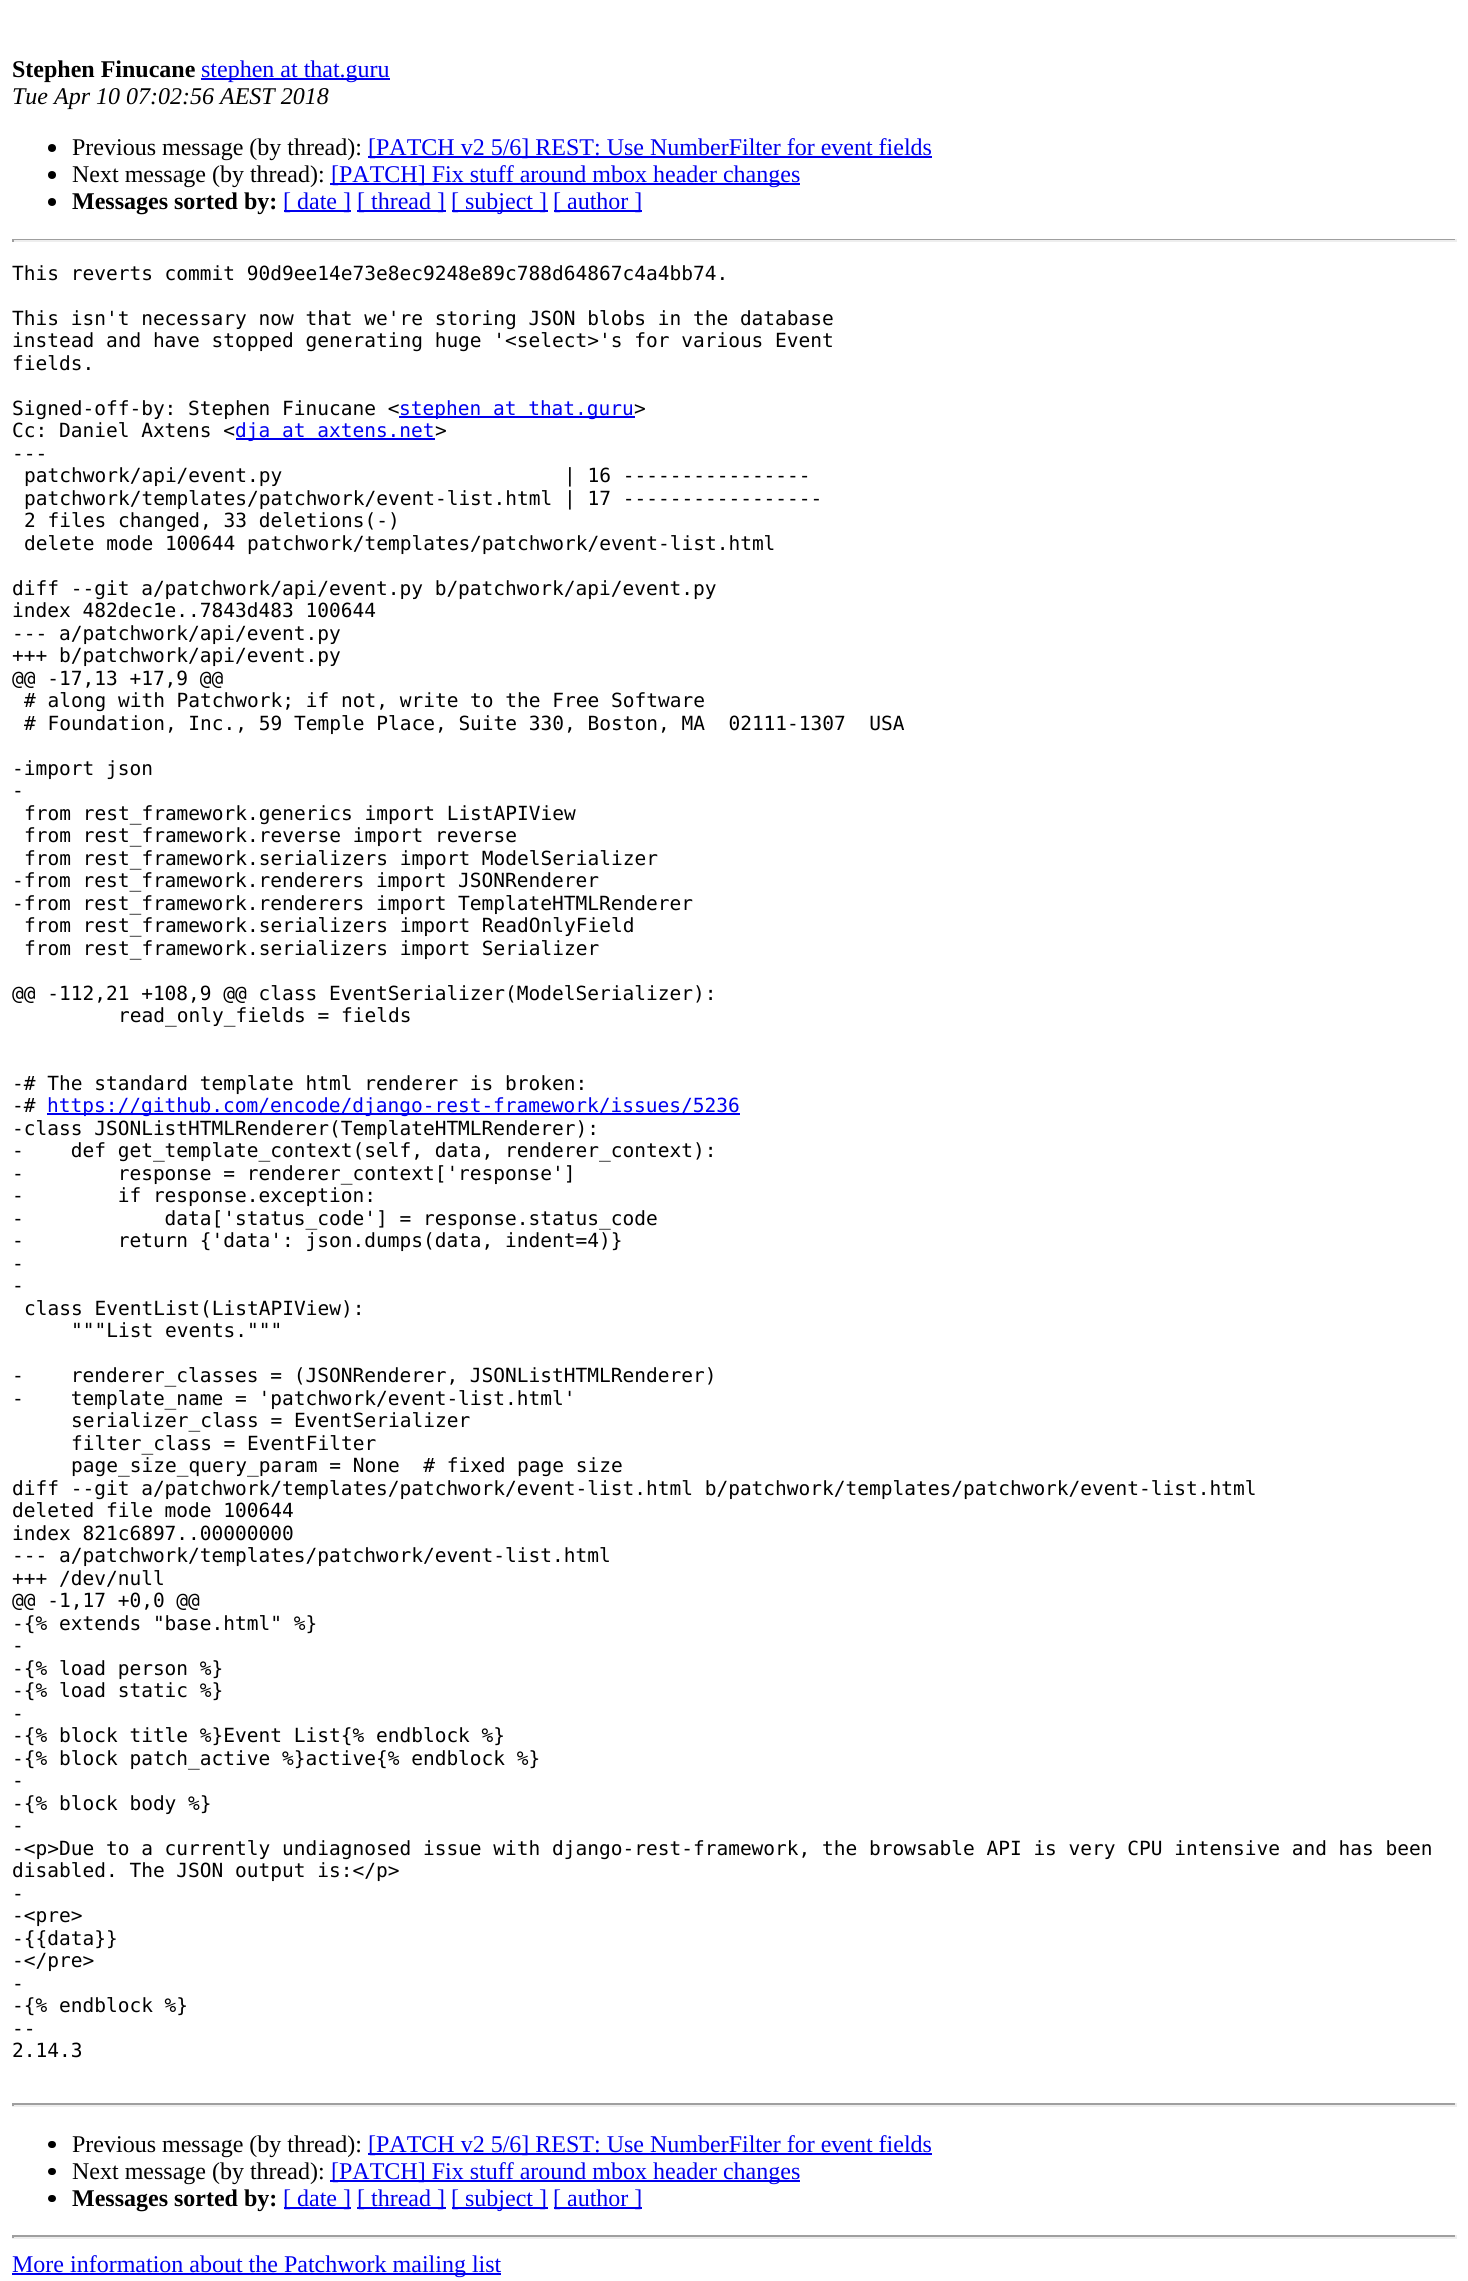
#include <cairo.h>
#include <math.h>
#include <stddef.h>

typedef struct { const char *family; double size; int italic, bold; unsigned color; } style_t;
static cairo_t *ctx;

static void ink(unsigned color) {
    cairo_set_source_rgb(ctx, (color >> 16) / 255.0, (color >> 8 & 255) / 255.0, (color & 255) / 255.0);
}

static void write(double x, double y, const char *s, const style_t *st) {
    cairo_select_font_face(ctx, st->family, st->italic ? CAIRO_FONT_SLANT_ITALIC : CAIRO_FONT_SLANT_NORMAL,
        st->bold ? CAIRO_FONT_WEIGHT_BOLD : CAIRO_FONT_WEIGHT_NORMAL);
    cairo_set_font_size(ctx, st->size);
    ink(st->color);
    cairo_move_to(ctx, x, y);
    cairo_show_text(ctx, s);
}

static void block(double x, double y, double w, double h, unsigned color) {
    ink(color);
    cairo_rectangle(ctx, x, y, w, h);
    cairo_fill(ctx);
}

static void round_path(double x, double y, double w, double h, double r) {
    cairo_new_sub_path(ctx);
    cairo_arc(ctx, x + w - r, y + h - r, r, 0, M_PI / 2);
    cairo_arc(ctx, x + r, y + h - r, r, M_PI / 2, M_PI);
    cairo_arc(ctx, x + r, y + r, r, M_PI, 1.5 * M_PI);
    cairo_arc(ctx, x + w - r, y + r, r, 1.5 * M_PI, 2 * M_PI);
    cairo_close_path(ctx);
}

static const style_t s1 = {"Liberation Serif", 24, 0, 1, 0x000000};
static const style_t s2 = {"Liberation Serif", 24, 0, 0, 0x0000ee};
static const style_t s3 = {"Liberation Serif", 24, 1, 0, 0x000000};
static const style_t s4 = {"Liberation Serif", 24, 0, 0, 0x000000};
static const style_t s5 = {"DejaVu Sans Mono", 19.5, 0, 0, 0x000000};
static const style_t s6 = {"DejaVu Sans Mono", 19.5, 0, 0, 0x0000ee};

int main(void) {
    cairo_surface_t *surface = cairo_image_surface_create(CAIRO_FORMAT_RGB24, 1468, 2281);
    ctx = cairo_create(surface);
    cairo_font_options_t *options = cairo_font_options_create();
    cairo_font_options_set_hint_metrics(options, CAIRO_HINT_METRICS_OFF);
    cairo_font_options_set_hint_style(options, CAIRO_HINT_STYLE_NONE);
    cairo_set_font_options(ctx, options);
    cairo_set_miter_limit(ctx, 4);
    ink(0xffffff);
    cairo_paint(ctx);
    write(12, 77, "Stephen Finucane", &s1);
    block(201, 78, 189, 2, 0x0000ee);
    write(201, 77, "stephen at that.guru", &s2);
    write(12, 104, "Tue Apr 10 07:02:56 AEST 2018", &s3);
    cairo_new_path(ctx);
    cairo_arc(ctx, 52, 148, 4, 0, 2 * M_PI);
    cairo_fill(ctx);
    write(72, 155, "Previous message (by thread):", &s4);
    block(368, 156, 564, 2, 0x0000ee);
    write(368, 155, "[PATCH v2 5/6] REST: Use NumberFilter for event fields", &s2);
    ink(0x000000);
    cairo_new_path(ctx);
    cairo_arc(ctx, 52, 175, 4, 0, 2 * M_PI);
    cairo_fill(ctx);
    write(72, 182, "Next message (by thread):", &s4);
    block(330, 183, 470, 2, 0x0000ee);
    write(331, 182, "[PATCH] Fix stuff around mbox header changes", &s2);
    ink(0x000000);
    cairo_new_path(ctx);
    cairo_arc(ctx, 52, 202, 4, 0, 2 * M_PI);
    cairo_fill(ctx);
    write(72, 209, "Messages sorted by:", &s1);
    block(284, 210, 67, 2, 0x0000ee);
    write(283, 209, "[ date ]", &s2);
    block(357, 210, 89, 2, 0x0000ee);
    write(357, 209, "[ thread ]", &s2);
    block(452, 210, 96, 2, 0x0000ee);
    write(451, 209, "[ subject ]", &s2);
    block(554, 210, 88, 2, 0x0000ee);
    write(553, 209, "[ author ]", &s2);
    block(12, 239, 1445, 1, 0x9f9f9f);
    block(1455, 239, 2, 3, 0xeeeeee);
    block(12, 240, 1445, 2, 0xeeeeee);
    block(12, 239, 2, 3, 0x9f9f9f);
    write(12, 280, "This reverts commit 90d9ee14e73e8ec9248e89c788d64867c4a4bb74.", &s5);
    write(12, 325, "This isn't necessary now that we're storing JSON blobs in the database", &s5);
    write(12, 347, "instead and have stopped generating huge '<select>'s for various Event", &s5);
    write(12, 370, "fields.", &s5);
    write(12, 415, "Signed-off-by: Stephen Finucane <", &s5);
    block(399, 416, 236, 2, 0x0000ee);
    write(399, 415, "stephen at that.guru", &s6);
    write(634, 415, ">", &s5);
    write(12, 437, "Cc: Daniel Axtens <", &s5);
    block(236, 438, 199, 2, 0x0000ee);
    write(235, 437, "dja at axtens.net", &s6);
    write(435, 437, ">", &s5);
    write(12, 460, "---", &s5);
    write(24, 482, "patchwork/api/event.py                        | 16 ----------------", &s5);
    write(24, 505, "patchwork/templates/patchwork/event-list.html | 17 -----------------", &s5);
    write(24, 527, "2 files changed, 33 deletions(-)", &s5);
    write(24, 550, "delete mode 100644 patchwork/templates/patchwork/event-list.html", &s5);
    write(12, 595, "diff --git a/patchwork/api/event.py b/patchwork/api/event.py", &s5);
    write(12, 617, "index 482dec1e..7843d483 100644", &s5);
    write(12, 640, "--- a/patchwork/api/event.py", &s5);
    write(12, 662, "+++ b/patchwork/api/event.py", &s5);
    write(12, 685, "@@ -17,13 +17,9 @@", &s5);
    write(24, 707, "# along with Patchwork; if not, write to the Free Software", &s5);
    write(24, 730, "# Foundation, Inc., 59 Temple Place, Suite 330, Boston, MA  02111-1307  USA", &s5);
    write(12, 775, "-import json", &s5);
    write(12, 797, "-", &s5);
    write(24, 820, "from rest_framework.generics import ListAPIView", &s5);
    write(24, 842, "from rest_framework.reverse import reverse", &s5);
    write(24, 865, "from rest_framework.serializers import ModelSerializer", &s5);
    write(12, 887, "-from rest_framework.renderers import JSONRenderer", &s5);
    write(12, 910, "-from rest_framework.renderers import TemplateHTMLRenderer", &s5);
    write(24, 932, "from rest_framework.serializers import ReadOnlyField", &s5);
    write(24, 955, "from rest_framework.serializers import Serializer", &s5);
    write(12, 1000, "@@ -112,21 +108,9 @@ class EventSerializer(ModelSerializer):", &s5);
    write(118, 1022, "read_only_fields = fields", &s5);
    write(12, 1090, "-# The standard template html renderer is broken:", &s5);
    write(12, 1112, "-#", &s5);
    block(47, 1113, 693, 2, 0x0000ee);
    write(47, 1112, "https://github.com/encode/django-rest-framework/issues/5236", &s6);
    write(12, 1135, "-class JSONListHTMLRenderer(TemplateHTMLRenderer):", &s5);
    write(12, 1157, "-    def get_template_context(self, data, renderer_context):", &s5);
    write(12, 1180, "-        response = renderer_context['response']", &s5);
    write(12, 1202, "-        if response.exception:", &s5);
    write(12, 1225, "-            data['status_code'] = response.status_code", &s5);
    write(12, 1247, "-        return {'data': json.dumps(data, indent=4)}", &s5);
    write(12, 1270, "-", &s5);
    write(12, 1292, "-", &s5);
    write(24, 1315, "class EventList(ListAPIView):", &s5);
    write(71, 1337, "\"\"\"List events.\"\"\"", &s5);
    write(12, 1382, "-    renderer_classes = (JSONRenderer, JSONListHTMLRenderer)", &s5);
    write(12, 1405, "-    template_name = 'patchwork/event-list.html'", &s5);
    write(71, 1427, "serializer_class = EventSerializer", &s5);
    write(71, 1450, "filter_class = EventFilter", &s5);
    write(71, 1472, "page_size_query_param = None  # fixed page size", &s5);
    write(12, 1495, "diff --git a/patchwork/templates/patchwork/event-list.html b/patchwork/templates/patchwork/event-list.html", &s5);
    write(12, 1517, "deleted file mode 100644", &s5);
    write(12, 1540, "index 821c6897..00000000", &s5);
    write(12, 1562, "--- a/patchwork/templates/patchwork/event-list.html", &s5);
    write(12, 1585, "+++ /dev/null", &s5);
    write(12, 1607, "@@ -1,17 +0,0 @@", &s5);
    write(12, 1630, "-{% extends \"base.html\" %}", &s5);
    write(12, 1652, "-", &s5);
    write(12, 1675, "-{% load person %}", &s5);
    write(12, 1697, "-{% load static %}", &s5);
    write(12, 1720, "-", &s5);
    write(12, 1742, "-{% block title %}Event List{% endblock %}", &s5);
    write(12, 1765, "-{% block patch_active %}active{% endblock %}", &s5);
    write(12, 1787, "-", &s5);
    write(12, 1810, "-{% block body %}", &s5);
    write(12, 1832, "-", &s5);
    write(12, 1855, "-<p>Due to a currently undiagnosed issue with django-rest-framework, the browsable API is very CPU intensive and has been", &s5);
    write(12, 1877, "disabled. The JSON output is:</p>", &s5);
    write(12, 1900, "-", &s5);
    write(12, 1922, "-<pre>", &s5);
    write(12, 1945, "-{{data}}", &s5);
    write(12, 1967, "-</pre>", &s5);
    write(12, 1990, "-", &s5);
    write(12, 2012, "-{% endblock %}", &s5);
    write(12, 2035, "--", &s5);
    write(12, 2057, "2.14.3", &s5);
    block(12, 2103, 1445, 2, 0x9f9f9f);
    block(1455, 2103, 2, 3, 0xeeeeee);
    block(12, 2105, 1445, 2, 0xeeeeee);
    block(12, 2103, 2, 3, 0x9f9f9f);
    ink(0x000000);
    round_path(48, 2141, 8, 7, 3.5);
    cairo_fill(ctx);
    write(72, 2152, "Previous message (by thread):", &s4);
    block(368, 2153, 564, 2, 0x0000ee);
    write(368, 2152, "[PATCH v2 5/6] REST: Use NumberFilter for event fields", &s2);
    ink(0x000000);
    round_path(48, 2168, 8, 7, 3.5);
    cairo_fill(ctx);
    write(72, 2179, "Next message (by thread):", &s4);
    block(330, 2180, 470, 2, 0x0000ee);
    write(331, 2179, "[PATCH] Fix stuff around mbox header changes", &s2);
    ink(0x000000);
    round_path(48, 2195, 8, 7, 3.5);
    cairo_fill(ctx);
    write(72, 2206, "Messages sorted by:", &s1);
    block(284, 2207, 67, 2, 0x0000ee);
    write(283, 2206, "[ date ]", &s2);
    block(357, 2207, 89, 2, 0x0000ee);
    write(357, 2206, "[ thread ]", &s2);
    block(452, 2207, 96, 2, 0x0000ee);
    write(451, 2206, "[ subject ]", &s2);
    block(554, 2207, 88, 2, 0x0000ee);
    write(553, 2206, "[ author ]", &s2);
    block(12, 2235, 1445, 2, 0x9f9f9f);
    block(1455, 2235, 2, 3, 0xeeeeee);
    block(12, 2237, 1445, 2, 0xeeeeee);
    block(12, 2235, 2, 3, 0x9f9f9f);
    block(12, 2273, 489, 2, 0x0000ee);
    write(12, 2272, "More information about the Patchwork mailing list", &s2);
    cairo_surface_write_to_png(surface, "screenshot.png");
    cairo_font_options_destroy(options);
    cairo_destroy(ctx);
    cairo_surface_destroy(surface);
    return 0;
}
